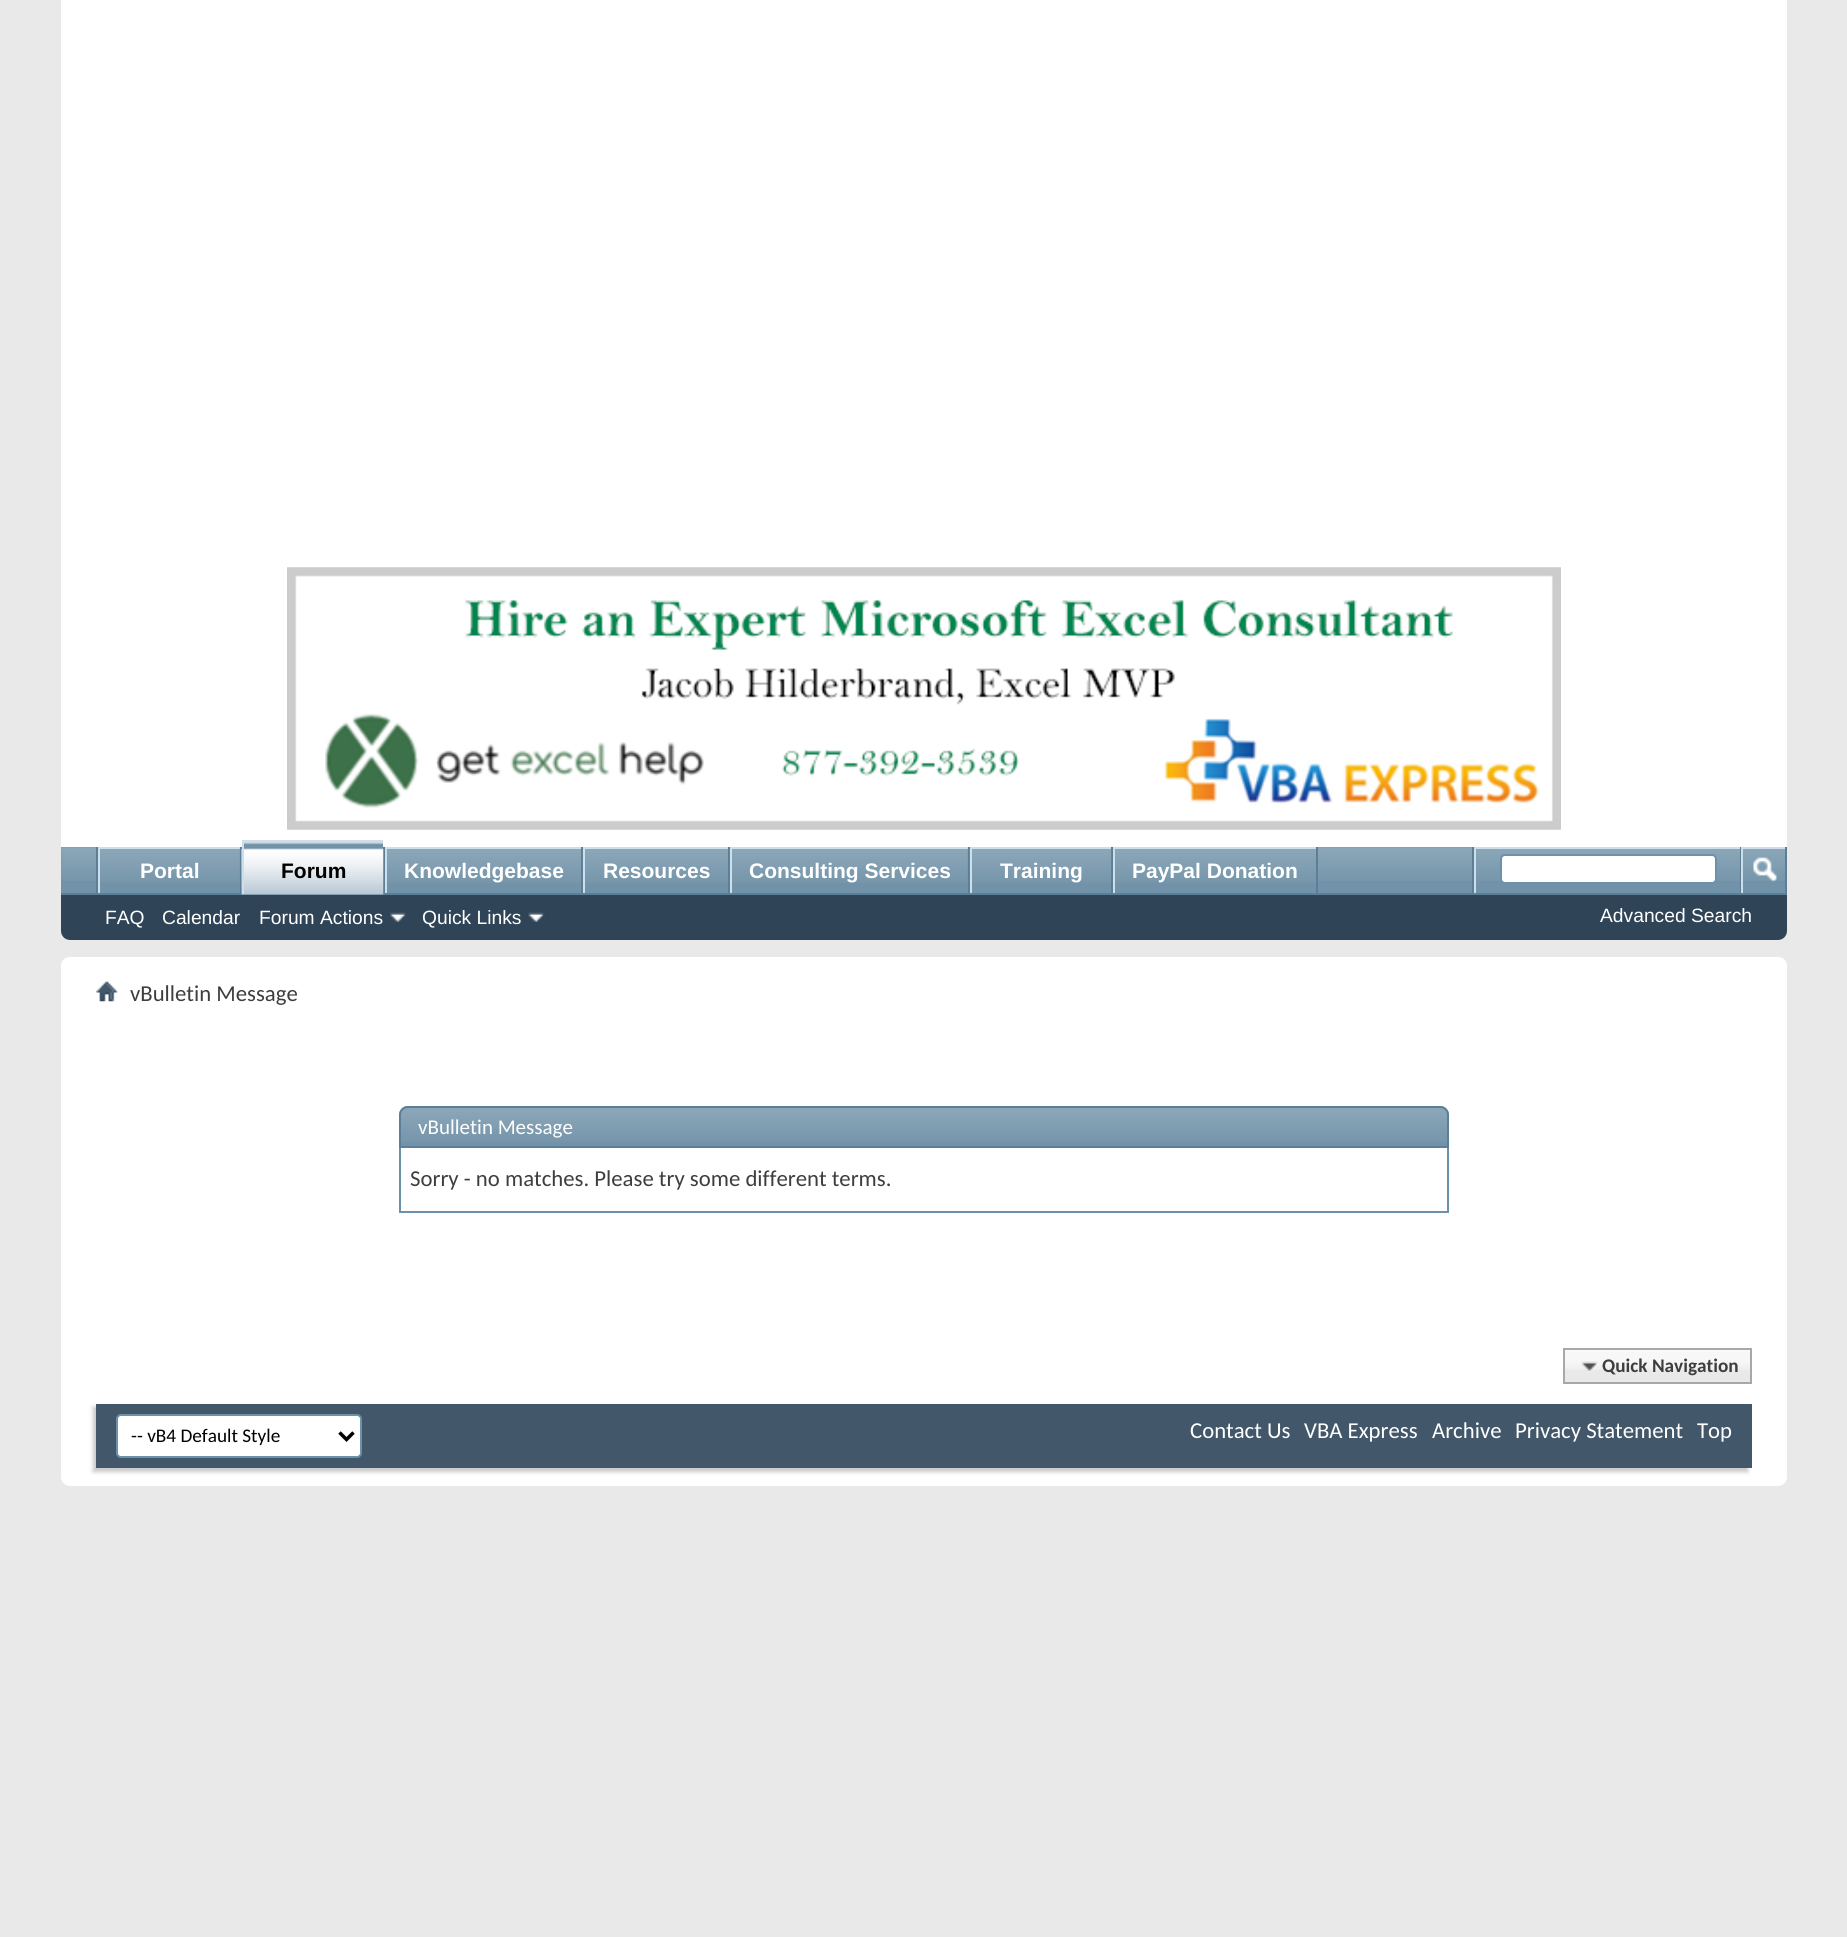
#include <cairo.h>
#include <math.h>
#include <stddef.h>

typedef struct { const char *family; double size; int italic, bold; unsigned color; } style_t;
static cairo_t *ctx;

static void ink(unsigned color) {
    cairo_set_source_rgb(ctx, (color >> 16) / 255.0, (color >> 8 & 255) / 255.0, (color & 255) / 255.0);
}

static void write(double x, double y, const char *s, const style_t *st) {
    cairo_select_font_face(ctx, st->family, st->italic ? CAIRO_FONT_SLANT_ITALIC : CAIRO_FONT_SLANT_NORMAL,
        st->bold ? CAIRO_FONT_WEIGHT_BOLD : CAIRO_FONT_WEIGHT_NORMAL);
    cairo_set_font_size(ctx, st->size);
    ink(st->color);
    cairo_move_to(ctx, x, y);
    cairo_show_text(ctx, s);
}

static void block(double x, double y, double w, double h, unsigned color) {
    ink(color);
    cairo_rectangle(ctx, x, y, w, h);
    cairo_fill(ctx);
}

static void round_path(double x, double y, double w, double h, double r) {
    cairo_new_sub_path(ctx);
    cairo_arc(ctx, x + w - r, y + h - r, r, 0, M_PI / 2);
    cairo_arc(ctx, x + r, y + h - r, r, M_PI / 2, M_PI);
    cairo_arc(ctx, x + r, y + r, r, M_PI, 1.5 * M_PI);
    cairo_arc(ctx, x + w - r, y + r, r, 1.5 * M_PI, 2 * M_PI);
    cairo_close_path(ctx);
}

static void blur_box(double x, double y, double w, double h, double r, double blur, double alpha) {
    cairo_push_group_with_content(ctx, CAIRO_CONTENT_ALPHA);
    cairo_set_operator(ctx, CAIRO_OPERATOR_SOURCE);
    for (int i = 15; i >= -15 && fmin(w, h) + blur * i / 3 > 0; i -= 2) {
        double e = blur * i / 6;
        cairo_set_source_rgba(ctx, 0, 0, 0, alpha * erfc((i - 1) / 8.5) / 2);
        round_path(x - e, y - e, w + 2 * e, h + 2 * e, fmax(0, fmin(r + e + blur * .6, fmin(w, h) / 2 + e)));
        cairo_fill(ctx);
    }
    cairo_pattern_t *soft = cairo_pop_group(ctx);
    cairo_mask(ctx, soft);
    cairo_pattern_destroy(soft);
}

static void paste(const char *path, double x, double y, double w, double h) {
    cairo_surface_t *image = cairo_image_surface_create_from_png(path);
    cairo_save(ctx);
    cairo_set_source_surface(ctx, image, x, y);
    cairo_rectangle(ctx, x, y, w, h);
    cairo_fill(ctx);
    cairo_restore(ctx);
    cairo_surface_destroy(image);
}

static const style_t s1 = {"Liberation Sans", 21, 0, 1, 0xffffff};
static const style_t s2 = {"Liberation Sans", 21, 0, 1, 0x000000};
static const style_t s3 = {"Liberation Sans", 19.25, 0, 0, 0xffffff};
static const style_t s4 = {"Carlito", 22.75, 0, 0, 0x3e3e3e};
static const style_t s5 = {"Carlito", 21, 0, 0, 0xffffff};
static const style_t s6 = {"Carlito", 19.25, 0, 1, 0x3e3e3e};
static const style_t s7 = {"Carlito", 19.25, 0, 0, 0x000000};
static const style_t s8 = {"Carlito", 22.75, 0, 0, 0xffffff};

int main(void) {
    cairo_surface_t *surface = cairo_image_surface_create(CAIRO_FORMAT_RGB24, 1847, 1937);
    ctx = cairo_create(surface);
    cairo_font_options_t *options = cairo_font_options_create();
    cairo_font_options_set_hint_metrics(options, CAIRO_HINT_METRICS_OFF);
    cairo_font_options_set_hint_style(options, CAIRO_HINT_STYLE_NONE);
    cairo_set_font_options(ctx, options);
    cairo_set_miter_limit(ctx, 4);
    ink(0xe9e9e9);
    cairo_paint(ctx);
    ink(0xffffff);
    cairo_new_path(ctx);
    cairo_move_to(ctx, 61, -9);
    cairo_line_to(ctx, 1787, -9);
    cairo_line_to(ctx, 1787, 931);
    cairo_curve_to(ctx, 1787, 936, 1783, 940, 1778, 940);
    cairo_line_to(ctx, 70, 940);
    cairo_curve_to(ctx, 65, 940, 61, 936, 61, 931);
    cairo_close_path(ctx);
    cairo_fill(ctx);
    paste("pic1.png", 287, 567, 1274, 263);
    ink(0x2f4456);
    cairo_new_path(ctx);
    cairo_move_to(ctx, 61, 847);
    cairo_line_to(ctx, 1787, 847);
    cairo_line_to(ctx, 1787, 931);
    cairo_curve_to(ctx, 1787, 936, 1783, 940, 1778, 940);
    cairo_line_to(ctx, 70, 940);
    cairo_curve_to(ctx, 65, 940, 61, 936, 61, 931);
    cairo_close_path(ctx);
    cairo_fill(ctx);
    block(61, 847, 1724, 46, 0x7192a8);
    paste("pic2.png", 61, 847, 1724, 34);
    block(240, 847, 2, 47, 0x5a7f97);
    block(96, 847, 2, 47, 0x5a7f97);
    block(100, 849, 140, 32, 0x7192a8);
    paste("pic3.png", 100, 849, 140, 34);
    block(98, 847, 142, 2, 0xcedfeb);
    block(98, 847, 2, 47, 0xcedfeb);
    write(140, 878, "Portal", &s1);
    block(383, 847, 2, 46, 0x5a7f97);
    block(581, 847, 2, 47, 0x5a7f97);
    block(385, 847, 196, 2, 0xcedfeb);
    block(385, 847, 2, 47, 0xcedfeb);
    block(728, 847, 2, 47, 0x5a7f97);
    block(585, 849, 143, 32, 0x7192a8);
    paste("pic6.png", 582, 849, 146, 34);
    block(583, 847, 145, 2, 0xcedfeb);
    block(583, 847, 2, 47, 0xcedfeb);
    block(968, 847, 2, 47, 0x5a7f97);
    block(732, 849, 236, 32, 0x7192a8);
    paste("pic7.png", 729, 849, 239, 34);
    block(730, 847, 238, 2, 0xcedfeb);
    block(730, 847, 2, 47, 0xcedfeb);
    block(1111, 847, 2, 47, 0x5a7f97);
    block(972, 849, 139, 32, 0x7192a8);
    paste("pic8.png", 969, 849, 143, 34);
    block(970, 847, 141, 2, 0xcedfeb);
    block(970, 847, 2, 47, 0xcedfeb);
    block(1316, 847, 2, 47, 0x5a7f97);
    block(1113, 847, 203, 2, 0xcedfeb);
    block(1113, 847, 2, 47, 0xcedfeb);
    block(61, 893, 1726, 2, 0x5a7f97);
    block(244, 842, 139, 52, 0x7192a8);
    paste("pic4.png", 241, 842, 143, 53);
    block(242, 840, 141, 2, 0xcedfeb);
    block(242, 840, 2, 54, 0xcedfeb);
    write(281, 878, "Forum", &s2);
    block(387, 849, 194, 32, 0x7192a8);
    paste("pic5.png", 387, 849, 194, 34);
    write(404, 878, "Knowledgebase", &s1);
    write(603, 878, "Resources", &s1);
    write(749, 878, "Consulting Services", &s1);
    write(1000, 878, "Training", &s1);
    block(1115, 849, 201, 32, 0x7192a8);
    paste("pic9.png", 1115, 849, 201, 34);
    write(1132, 878, "PayPal Donation", &s1);
    write(105, 924, "FAQ", &s3);
    write(162, 924, "Calendar", &s3);
    write(259, 924, "Forum Actions", &s3);
    paste("pic10.png", 390, 912, 16, 10);
    write(422, 924, "Quick Links", &s3);
    paste("pic11.png", 528, 912, 17, 10);
    block(1472, 847, 2, 46, 0x5a7f97);
    block(1474, 847, 266, 2, 0xcedfeb);
    block(1474, 847, 2, 46, 0xcedfeb);
    ink(0xffffff);
    round_path(1501, 855, 215, 28, 4);
    cairo_fill_preserve(ctx);
    ink(0x6b91ab);
    cairo_stroke(ctx);
    block(1785, 847, 2, 46, 0x5a7f97);
    block(1740, 847, 1, 46, 0x5a7f97);
    block(1741, 847, 44, 2, 0xcedfeb);
    block(1741, 847, 2, 46, 0xcedfeb);
    paste("pic12.png", 1753, 857, 24, 26);
    write(1600, 922, "Advanced Search", &s3);
    round_path(61, 957, 1726, 529, 9);
    cairo_fill(ctx);
    paste("pic13.png", 96, 981, 22, 21);
    write(130, 1001, "vBulletin Message", &s4);
    ink(0x7192a8);
    cairo_new_path(ctx);
    cairo_move_to(ctx, 408, 1106);
    cairo_line_to(ctx, 1440, 1106);
    cairo_curve_to(ctx, 1445, 1106, 1449, 1110, 1449, 1115);
    cairo_line_to(ctx, 1449, 1148);
    cairo_line_to(ctx, 399, 1148);
    cairo_line_to(ctx, 399, 1115);
    cairo_curve_to(ctx, 399, 1110, 403, 1106, 408, 1106);
    cairo_close_path(ctx);
    cairo_fill(ctx);
    paste("pic14.png", 399, 1108, 1050, 34);
    cairo_new_path(ctx);
    cairo_move_to(ctx, 408, 1107);
    cairo_line_to(ctx, 1440, 1107);
    cairo_curve_to(ctx, 1444.5, 1107, 1448, 1110.5, 1448, 1115);
    cairo_line_to(ctx, 1448, 1147);
    cairo_line_to(ctx, 400, 1147);
    cairo_line_to(ctx, 400, 1115);
    cairo_curve_to(ctx, 400, 1110.5, 403.5, 1107, 408, 1107);
    cairo_close_path(ctx);
    ink(0x5a7f97);
    cairo_stroke(ctx);
    write(418, 1134, "vBulletin Message", &s5);
    block(1447, 1148, 2, 65, 0x6b91ab);
    block(399, 1211, 1050, 2, 0x6b91ab);
    block(399, 1148, 2, 65, 0x6b91ab);
    write(410, 1186, "Sorry - no matches. Please try some different terms.", &s4);
    block(1565, 1350, 185, 32, 0xe9e9e9);
    paste("pic15.png", 1565, 1350, 185, 20);
    cairo_rectangle(ctx, 1564, 1349, 187, 34);
    ink(0xa8a8a8);
    cairo_stroke(ctx);
    paste("pic16.png", 1581, 1361, 17, 11);
    write(1602, 1372, "Quick Navigation", &s6);
    ink(0xc8c8c8);
    blur_box(93, 1407, 1655, 65, 0, 2, 1);
    block(96, 1404, 1656, 64, 0x425769);
    ink(0xffffff);
    round_path(117, 1415, 244, 42, 4);
    cairo_fill_preserve(ctx);
    ink(0x6b91ab);
    cairo_stroke(ctx);
    cairo_new_path(ctx);
    cairo_move_to(ctx, 339.5, 1432.5);
    cairo_line_to(ctx, 346.5, 1439.5);
    cairo_line_to(ctx, 353.5, 1432.5);
    ink(0x000000);
    cairo_set_line_width(ctx, 3.5);
    cairo_stroke(ctx);
    write(131, 1442, "-- vB4 Default Style", &s7);
    write(1190, 1438, "Contact Us", &s8);
    write(1304, 1438, "VBA Express", &s8);
    write(1432, 1438, "Archive", &s8);
    write(1515, 1438, "Privacy Statement", &s8);
    write(1697, 1438, "Top", &s8);
    cairo_surface_write_to_png(surface, "screenshot.png");
    cairo_font_options_destroy(options);
    cairo_destroy(ctx);
    cairo_surface_destroy(surface);
    return 0;
}
